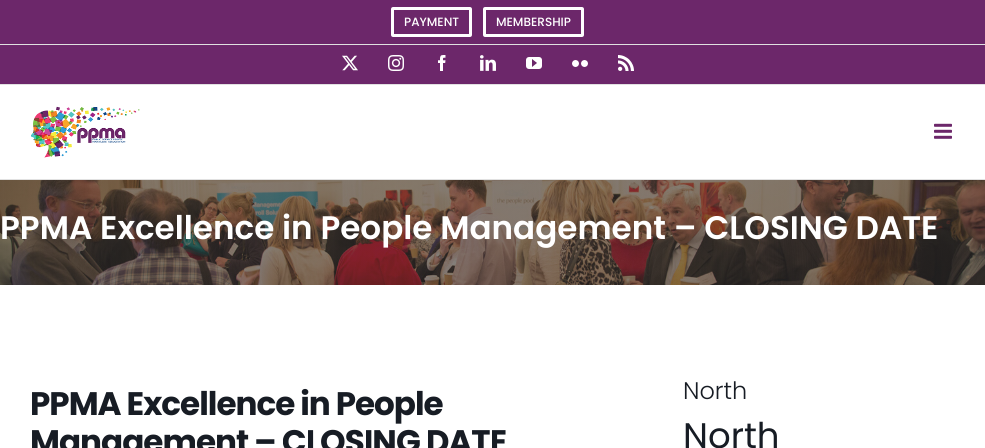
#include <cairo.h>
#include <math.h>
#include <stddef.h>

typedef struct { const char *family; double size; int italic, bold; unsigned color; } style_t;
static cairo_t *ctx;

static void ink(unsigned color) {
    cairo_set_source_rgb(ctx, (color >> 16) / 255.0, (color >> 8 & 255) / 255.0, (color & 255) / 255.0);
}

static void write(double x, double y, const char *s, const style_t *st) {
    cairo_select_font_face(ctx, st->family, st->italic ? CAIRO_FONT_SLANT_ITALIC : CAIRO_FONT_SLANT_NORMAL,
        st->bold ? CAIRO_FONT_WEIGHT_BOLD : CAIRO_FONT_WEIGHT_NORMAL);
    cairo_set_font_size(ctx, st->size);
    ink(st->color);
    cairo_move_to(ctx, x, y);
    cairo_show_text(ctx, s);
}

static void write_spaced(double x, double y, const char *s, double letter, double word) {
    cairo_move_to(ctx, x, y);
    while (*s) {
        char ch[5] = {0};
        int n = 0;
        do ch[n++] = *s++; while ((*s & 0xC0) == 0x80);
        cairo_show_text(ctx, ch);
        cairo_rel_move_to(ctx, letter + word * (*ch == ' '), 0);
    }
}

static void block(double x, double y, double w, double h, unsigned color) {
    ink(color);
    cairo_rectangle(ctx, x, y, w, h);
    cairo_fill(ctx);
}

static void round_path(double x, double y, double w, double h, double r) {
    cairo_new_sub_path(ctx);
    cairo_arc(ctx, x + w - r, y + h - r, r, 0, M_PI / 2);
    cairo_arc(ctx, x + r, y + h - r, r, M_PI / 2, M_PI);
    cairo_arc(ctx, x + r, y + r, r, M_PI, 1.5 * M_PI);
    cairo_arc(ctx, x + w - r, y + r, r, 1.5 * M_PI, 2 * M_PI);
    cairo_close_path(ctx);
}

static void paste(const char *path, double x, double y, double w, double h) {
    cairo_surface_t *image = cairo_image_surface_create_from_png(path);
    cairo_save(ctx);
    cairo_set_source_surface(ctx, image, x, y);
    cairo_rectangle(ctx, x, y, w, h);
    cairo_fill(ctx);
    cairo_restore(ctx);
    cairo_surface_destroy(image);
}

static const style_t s1 = {"Poppins Medium", 12, 0, 0, 0xffffff};
static const style_t s2 = {"Poppins SemiBold", 32.6, 0, 0, 0xffffff};
static const style_t s3 = {"Poppins Light", 24, 0, 0, 0x171c24};
static const style_t s4 = {"Poppins", 35.5, 0, 0, 0x171c24};

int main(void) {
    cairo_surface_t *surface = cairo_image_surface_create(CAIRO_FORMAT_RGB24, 985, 448);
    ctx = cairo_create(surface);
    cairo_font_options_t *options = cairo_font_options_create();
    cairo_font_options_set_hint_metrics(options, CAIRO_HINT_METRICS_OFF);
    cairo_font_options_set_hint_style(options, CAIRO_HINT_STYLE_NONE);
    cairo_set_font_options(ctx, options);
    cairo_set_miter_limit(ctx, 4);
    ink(0xffffff);
    cairo_paint(ctx);
    block(0, 0, 985, 84, 0x6c276a);
    block(0, 84, 985, 1, 0xe1e1e1);
    block(0, 44, 985, 1, 0xe1e1e1);
    round_path(392.5, 8.5, 78, 27, 0.5);
    ink(0xffffff);
    cairo_set_line_width(ctx, 3);
    cairo_stroke(ctx);
    write(404, 26, "PAYMENT", &s1);
    round_path(484.5, 8.5, 98, 27, 0.5);
    cairo_stroke(ctx);
    write(496, 26, "MEMBERSHIP", &s1);
    paste("pic1.png", 342, 55, 16, 16);
    paste("pic2.png", 388, 55, 16, 16);
    paste("pic3.png", 438, 55, 8, 16);
    paste("pic4.png", 480, 55, 16, 16);
    paste("pic5.png", 526, 57, 16, 12);
    paste("pic6.png", 572, 60, 16, 7);
    paste("pic7.png", 618, 55, 16, 16);
    block(0, 179, 985, 1, 0xe1e1e1);
    paste("pic8.png", 31, 106, 109, 52);
    paste("pic9.png", 934, 123, 18, 16);
    paste("pic10.png", 0, 180, 985, 105);
    write(0, 239, "PPMA Excellence in People Management – CLOSING DATE", &s2);
    cairo_select_font_face(ctx, "Poppins", CAIRO_FONT_SLANT_NORMAL, CAIRO_FONT_WEIGHT_BOLD);
    ink(0x171c24);
    write_spaced(30, 415, "PPMA Excellence in People", -1, 0);
    write_spaced(30, 453, "Management – CLOSING DATE", -1, 0);
    write(683, 399, "North", &s3);
    write(683, 448, "North", &s4);
    cairo_surface_write_to_png(surface, "screenshot.png");
    cairo_font_options_destroy(options);
    cairo_destroy(ctx);
    cairo_surface_destroy(surface);
    return 0;
}
